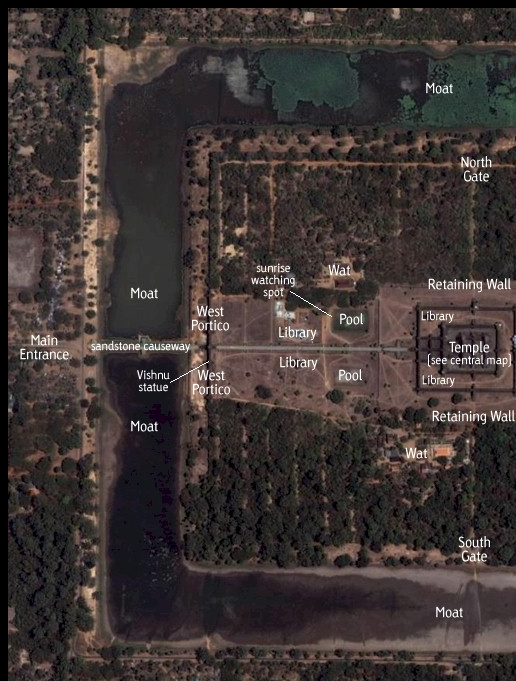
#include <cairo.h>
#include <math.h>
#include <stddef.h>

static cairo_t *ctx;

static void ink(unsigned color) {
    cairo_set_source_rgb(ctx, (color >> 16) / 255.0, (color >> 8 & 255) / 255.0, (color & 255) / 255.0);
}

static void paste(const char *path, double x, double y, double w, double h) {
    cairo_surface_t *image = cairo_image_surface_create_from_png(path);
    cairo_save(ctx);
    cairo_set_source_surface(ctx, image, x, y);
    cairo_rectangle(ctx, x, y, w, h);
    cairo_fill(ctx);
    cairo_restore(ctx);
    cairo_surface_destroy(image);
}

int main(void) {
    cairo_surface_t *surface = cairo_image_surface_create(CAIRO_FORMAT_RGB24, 516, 681);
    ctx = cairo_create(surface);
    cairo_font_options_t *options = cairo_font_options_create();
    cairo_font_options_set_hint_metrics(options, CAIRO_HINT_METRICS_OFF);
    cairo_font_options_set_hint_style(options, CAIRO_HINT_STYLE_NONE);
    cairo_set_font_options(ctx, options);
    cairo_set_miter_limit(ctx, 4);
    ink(0x000000);
    cairo_paint(ctx);
    paste("pic1.png", 8, 8, 508, 673);
    cairo_surface_write_to_png(surface, "screenshot.png");
    cairo_font_options_destroy(options);
    cairo_destroy(ctx);
    cairo_surface_destroy(surface);
    return 0;
}
